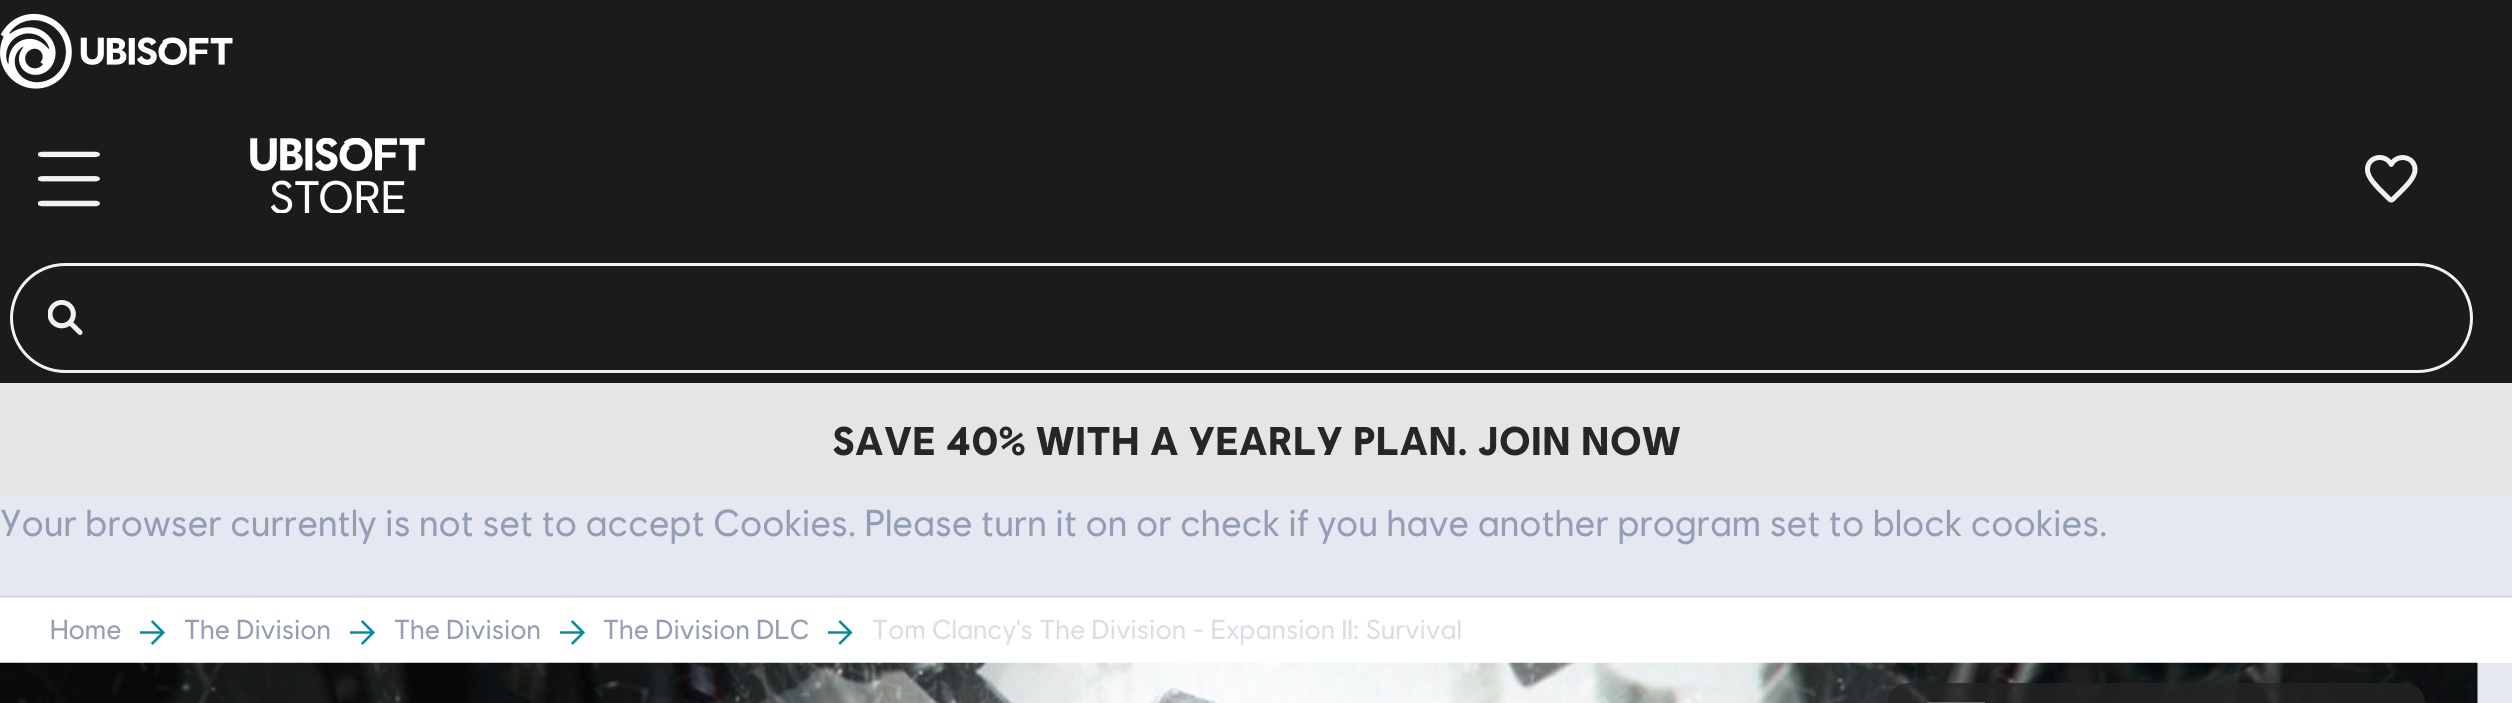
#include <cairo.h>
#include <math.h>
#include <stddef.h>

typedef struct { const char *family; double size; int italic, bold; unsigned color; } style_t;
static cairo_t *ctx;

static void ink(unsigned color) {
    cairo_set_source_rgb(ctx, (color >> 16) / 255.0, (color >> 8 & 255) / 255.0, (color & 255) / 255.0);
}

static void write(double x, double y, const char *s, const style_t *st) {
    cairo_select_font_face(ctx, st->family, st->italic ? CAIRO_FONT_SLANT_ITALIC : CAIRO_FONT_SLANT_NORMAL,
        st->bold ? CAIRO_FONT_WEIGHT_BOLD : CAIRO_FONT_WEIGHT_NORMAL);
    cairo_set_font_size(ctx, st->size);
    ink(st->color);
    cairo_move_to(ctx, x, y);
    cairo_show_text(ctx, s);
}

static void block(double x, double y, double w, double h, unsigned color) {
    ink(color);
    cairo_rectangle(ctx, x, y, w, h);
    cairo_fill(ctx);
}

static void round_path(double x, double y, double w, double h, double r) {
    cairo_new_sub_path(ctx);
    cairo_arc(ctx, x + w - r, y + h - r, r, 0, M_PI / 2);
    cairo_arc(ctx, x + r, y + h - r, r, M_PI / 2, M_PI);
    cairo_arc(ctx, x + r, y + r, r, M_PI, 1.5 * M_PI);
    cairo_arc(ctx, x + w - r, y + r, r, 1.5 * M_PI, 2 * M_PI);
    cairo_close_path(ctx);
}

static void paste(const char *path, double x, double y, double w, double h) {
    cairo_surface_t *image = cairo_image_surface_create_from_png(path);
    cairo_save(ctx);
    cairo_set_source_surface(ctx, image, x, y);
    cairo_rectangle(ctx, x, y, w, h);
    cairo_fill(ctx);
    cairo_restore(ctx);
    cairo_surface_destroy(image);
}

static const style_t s1 = {"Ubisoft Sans", 40, 0, 1, 0x262626};
static const style_t s2 = {"Ubisoft Sans", 37.5, 0, 0, 0x929db6};
static const style_t s3 = {"Ubisoft Sans", 27.5, 0, 0, 0x929db6};
static const style_t s4 = {"Ubisoft Sans", 27.5, 0, 0, 0xdbdde4};

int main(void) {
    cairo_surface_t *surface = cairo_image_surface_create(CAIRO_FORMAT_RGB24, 2512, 703);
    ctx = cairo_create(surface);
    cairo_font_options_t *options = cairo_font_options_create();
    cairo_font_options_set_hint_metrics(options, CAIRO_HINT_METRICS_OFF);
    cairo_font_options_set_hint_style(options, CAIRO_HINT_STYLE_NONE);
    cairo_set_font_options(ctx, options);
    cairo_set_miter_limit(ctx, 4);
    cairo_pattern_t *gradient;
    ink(0xe5e8f0);
    cairo_paint(ctx);
    block(0, 0, 2512, 383, 0x1b1b1b);
    paste("pic1.png", 0, 13, 233, 76);
    paste("pic2.png", 38, 151, 62, 56);
    paste("pic3.png", 250, 138, 175, 75);
    paste("pic4.png", 2365, 155, 53, 48);
    round_path(11.5, 264.5, 2460, 107, 53.5);
    ink(0xf2f2f2);
    cairo_set_line_width(ctx, 3);
    cairo_stroke(ctx);
    paste("pic5.png", 48, 300, 35, 35);
    block(0, 383, 2512, 112, 0xe5e5e5);
    write(832, 455, "SAVE 40% WITH A YEARLY PLAN. JOIN NOW", &s1);
    write(0, 536, "Your browser currently is not set to accept Cookies. Please turn it on or check if you have another program set to block cookies.", &s2);
    block(0, 598, 2512, 65, 0xffffff);
    block(0, 595, 2512, 3, 0xdbdde4);
    write(50, 639, "Home", &s3);
    paste("pic6.png", 140, 620, 25, 25);
    write(184, 639, "The Division", &s3);
    paste("pic6.png", 350, 620, 25, 25);
    write(394, 639, "The Division", &s3);
    paste("pic6.png", 560, 620, 25, 25);
    write(603, 639, "The Division DLC", &s3);
    paste("pic7.png", 828, 620, 25, 25);
    write(872, 639, "Tom Clancy's The Division - Expansion II: Survival", &s4);
    paste("pic8.png", 0, 662, 2478, 41);
    gradient = cairo_pattern_create_linear(2485, 607, 28, 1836);
    cairo_pattern_add_color_stop_rgba(gradient, 0.46, 0.051, 0.051, 0.051, 0);
    cairo_pattern_add_color_stop_rgba(gradient, 1, 0.051, 0.051, 0.051, 0.96);
    cairo_set_source(ctx, gradient);
    cairo_pattern_destroy(gradient);
    cairo_rectangle(ctx, 0, 663, 1082, 40);
    cairo_fill(ctx);
    cairo_set_source_rgba(ctx, 0.141, 0.141, 0.141, 0.8);
    round_path(1888, 683, 537, 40, 20);
    cairo_fill(ctx);
    paste("pic9.png", 1927, 702, 58, 1);
    cairo_surface_write_to_png(surface, "screenshot.png");
    cairo_font_options_destroy(options);
    cairo_destroy(ctx);
    cairo_surface_destroy(surface);
    return 0;
}
